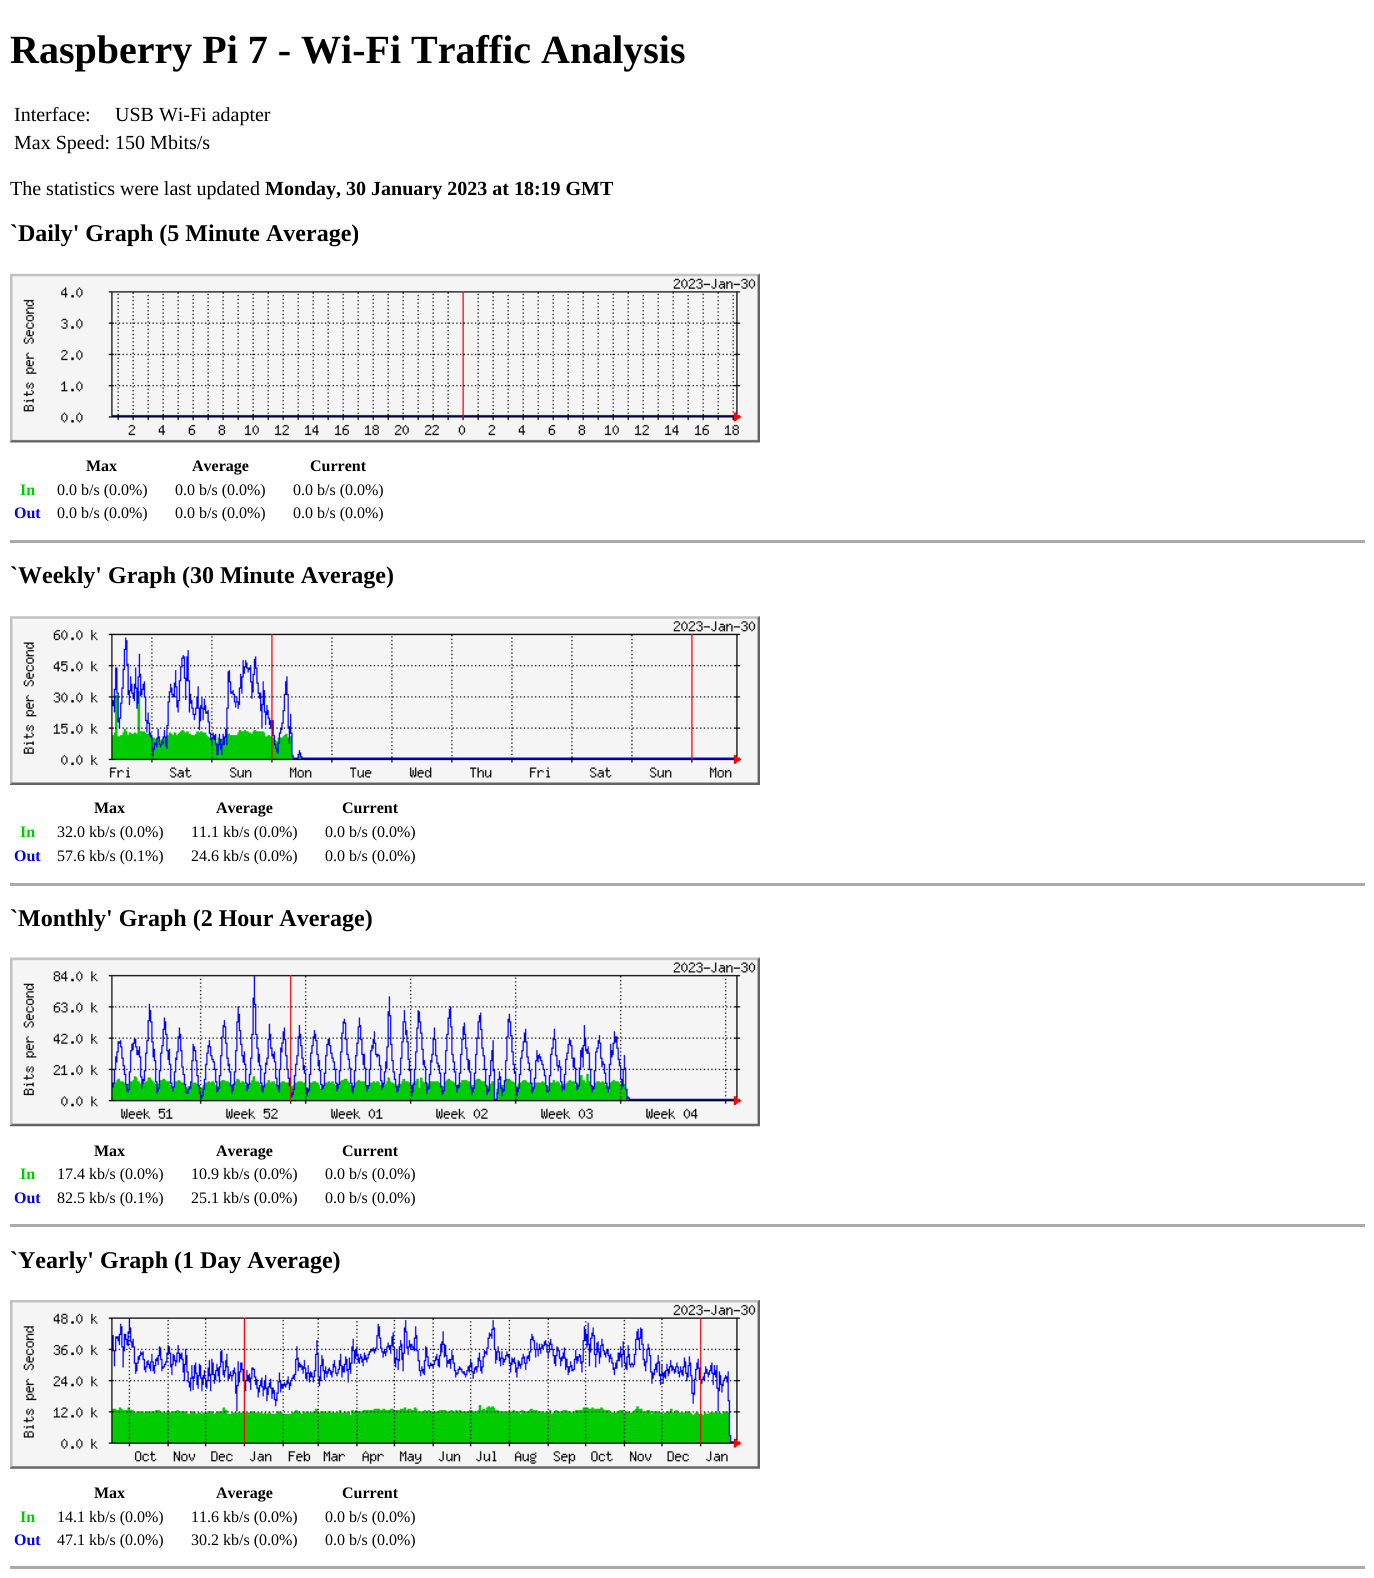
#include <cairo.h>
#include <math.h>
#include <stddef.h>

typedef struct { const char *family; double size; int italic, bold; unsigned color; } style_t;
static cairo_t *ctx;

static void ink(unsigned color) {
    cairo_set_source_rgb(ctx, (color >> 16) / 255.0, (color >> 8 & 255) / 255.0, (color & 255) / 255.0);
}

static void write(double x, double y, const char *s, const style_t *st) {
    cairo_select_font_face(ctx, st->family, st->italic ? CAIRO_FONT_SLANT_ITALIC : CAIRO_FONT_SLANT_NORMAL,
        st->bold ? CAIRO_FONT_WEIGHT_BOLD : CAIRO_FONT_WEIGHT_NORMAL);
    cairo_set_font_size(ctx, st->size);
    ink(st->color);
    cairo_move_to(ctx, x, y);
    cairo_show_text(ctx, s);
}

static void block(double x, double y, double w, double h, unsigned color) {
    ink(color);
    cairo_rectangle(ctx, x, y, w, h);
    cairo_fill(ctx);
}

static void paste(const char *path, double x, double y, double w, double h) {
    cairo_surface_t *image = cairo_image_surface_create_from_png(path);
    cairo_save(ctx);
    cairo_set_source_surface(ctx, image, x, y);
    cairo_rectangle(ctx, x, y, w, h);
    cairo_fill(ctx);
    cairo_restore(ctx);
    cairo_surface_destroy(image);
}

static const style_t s1 = {"Liberation Serif", 40, 0, 1, 0x000000};
static const style_t s2 = {"Liberation Serif", 20, 0, 0, 0x000000};
static const style_t s3 = {"Liberation Serif", 20, 0, 1, 0x000000};
static const style_t s4 = {"Liberation Serif", 24, 0, 1, 0x000000};
static const style_t s5 = {"Liberation Serif", 16, 0, 1, 0x000000};
static const style_t s6 = {"Liberation Serif", 16, 0, 1, 0x00cc00};
static const style_t s7 = {"Liberation Serif", 16, 0, 0, 0x000000};
static const style_t s8 = {"Liberation Serif", 16, 0, 1, 0x0000ff};

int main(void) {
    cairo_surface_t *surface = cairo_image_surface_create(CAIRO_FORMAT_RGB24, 1374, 1578);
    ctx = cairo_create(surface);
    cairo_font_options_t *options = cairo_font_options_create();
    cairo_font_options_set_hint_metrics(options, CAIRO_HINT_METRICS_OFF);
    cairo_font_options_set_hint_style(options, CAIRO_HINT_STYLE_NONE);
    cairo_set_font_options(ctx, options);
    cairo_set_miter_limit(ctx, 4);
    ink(0xffffff);
    cairo_paint(ctx);
    write(10, 63, "Raspberry Pi 7 - Wi-Fi Traffic Analysis", &s1);
    write(14, 121, "Interface:", &s2);
    write(115, 121, "USB Wi-Fi adapter", &s2);
    write(14, 149, "Max Speed: 150 Mbits/s", &s2);
    write(10, 195, "The statistics were last updated", &s2);
    write(265, 195, "Monday, 30 January 2023 at 18:19 GMT", &s3);
    block(10, 540, 1355, 3, 0xaaaaaa);
    write(10, 241, "`Daily' Graph (5 Minute Average)", &s4);
    paste("pic1.png", 10, 273, 750, 170);
    write(86, 471, "Max", &s5);
    write(192, 471, "Average", &s5);
    write(310, 471, "Current", &s5);
    write(20, 495, "In", &s6);
    write(57, 495, "0.0 b/s (0.0%)", &s7);
    write(175, 495, "0.0 b/s (0.0%)", &s7);
    write(293, 495, "0.0 b/s (0.0%)", &s7);
    write(14, 518, "Out", &s8);
    write(57, 518, "0.0 b/s (0.0%)", &s7);
    write(175, 518, "0.0 b/s (0.0%)", &s7);
    write(293, 518, "0.0 b/s (0.0%)", &s7);
    block(10, 883, 1355, 3, 0xaaaaaa);
    write(10, 583, "`Weekly' Graph (30 Minute Average)", &s4);
    paste("pic2.png", 10, 616, 750, 169);
    write(94, 813, "Max", &s5);
    write(216, 813, "Average", &s5);
    write(342, 813, "Current", &s5);
    write(20, 837, "In", &s6);
    write(57, 837, "32.0 kb/s (0.0%)", &s7);
    write(191, 837, "11.1 kb/s (0.0%)", &s7);
    write(325, 837, "0.0 b/s (0.0%)", &s7);
    write(14, 861, "Out", &s8);
    write(57, 861, "57.6 kb/s (0.1%)", &s7);
    write(191, 861, "24.6 kb/s (0.0%)", &s7);
    write(325, 861, "0.0 b/s (0.0%)", &s7);
    block(10, 1224, 1355, 3, 0xaaaaaa);
    write(10, 926, "`Monthly' Graph (2 Hour Average)", &s4);
    paste("pic3.png", 10, 957, 750, 170);
    write(94, 1156, "Max", &s5);
    write(216, 1156, "Average", &s5);
    write(342, 1156, "Current", &s5);
    write(20, 1179, "In", &s6);
    write(57, 1179, "17.4 kb/s (0.0%)", &s7);
    write(191, 1179, "10.9 kb/s (0.0%)", &s7);
    write(325, 1179, "0.0 b/s (0.0%)", &s7);
    write(14, 1203, "Out", &s8);
    write(57, 1203, "82.5 kb/s (0.1%)", &s7);
    write(191, 1203, "25.1 kb/s (0.0%)", &s7);
    write(325, 1203, "0.0 b/s (0.0%)", &s7);
    block(10, 1566, 1355, 3, 0xaaaaaa);
    write(10, 1268, "`Yearly' Graph (1 Day Average)", &s4);
    paste("pic4.png", 10, 1300, 750, 169);
    write(94, 1498, "Max", &s5);
    write(216, 1498, "Average", &s5);
    write(342, 1498, "Current", &s5);
    write(20, 1522, "In", &s6);
    write(57, 1522, "14.1 kb/s (0.0%)", &s7);
    write(191, 1522, "11.6 kb/s (0.0%)", &s7);
    write(325, 1522, "0.0 b/s (0.0%)", &s7);
    write(14, 1545, "Out", &s8);
    write(57, 1545, "47.1 kb/s (0.0%)", &s7);
    write(191, 1545, "30.2 kb/s (0.0%)", &s7);
    write(325, 1545, "0.0 b/s (0.0%)", &s7);
    cairo_surface_write_to_png(surface, "screenshot.png");
    cairo_font_options_destroy(options);
    cairo_destroy(ctx);
    cairo_surface_destroy(surface);
    return 0;
}
